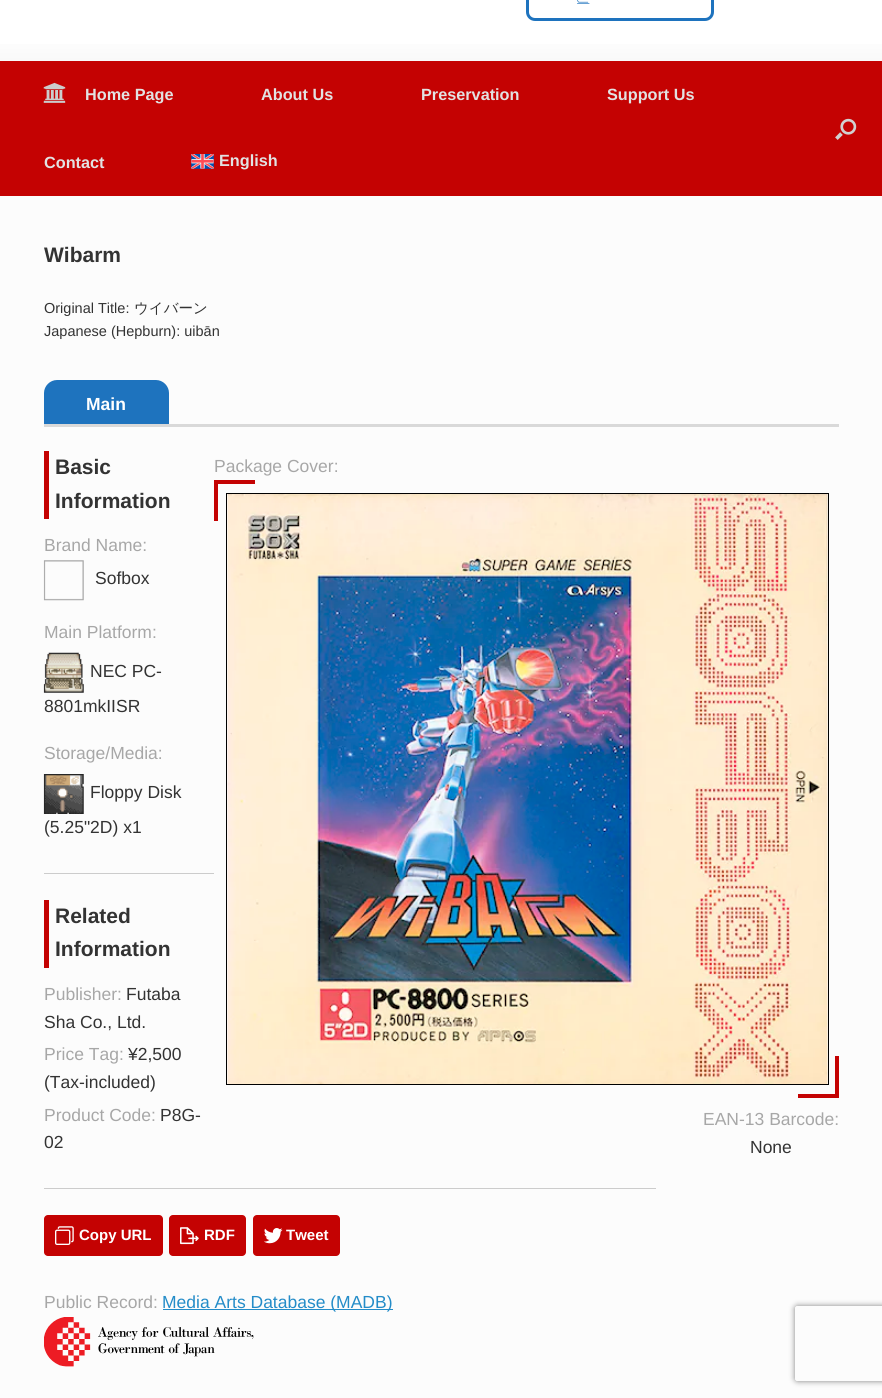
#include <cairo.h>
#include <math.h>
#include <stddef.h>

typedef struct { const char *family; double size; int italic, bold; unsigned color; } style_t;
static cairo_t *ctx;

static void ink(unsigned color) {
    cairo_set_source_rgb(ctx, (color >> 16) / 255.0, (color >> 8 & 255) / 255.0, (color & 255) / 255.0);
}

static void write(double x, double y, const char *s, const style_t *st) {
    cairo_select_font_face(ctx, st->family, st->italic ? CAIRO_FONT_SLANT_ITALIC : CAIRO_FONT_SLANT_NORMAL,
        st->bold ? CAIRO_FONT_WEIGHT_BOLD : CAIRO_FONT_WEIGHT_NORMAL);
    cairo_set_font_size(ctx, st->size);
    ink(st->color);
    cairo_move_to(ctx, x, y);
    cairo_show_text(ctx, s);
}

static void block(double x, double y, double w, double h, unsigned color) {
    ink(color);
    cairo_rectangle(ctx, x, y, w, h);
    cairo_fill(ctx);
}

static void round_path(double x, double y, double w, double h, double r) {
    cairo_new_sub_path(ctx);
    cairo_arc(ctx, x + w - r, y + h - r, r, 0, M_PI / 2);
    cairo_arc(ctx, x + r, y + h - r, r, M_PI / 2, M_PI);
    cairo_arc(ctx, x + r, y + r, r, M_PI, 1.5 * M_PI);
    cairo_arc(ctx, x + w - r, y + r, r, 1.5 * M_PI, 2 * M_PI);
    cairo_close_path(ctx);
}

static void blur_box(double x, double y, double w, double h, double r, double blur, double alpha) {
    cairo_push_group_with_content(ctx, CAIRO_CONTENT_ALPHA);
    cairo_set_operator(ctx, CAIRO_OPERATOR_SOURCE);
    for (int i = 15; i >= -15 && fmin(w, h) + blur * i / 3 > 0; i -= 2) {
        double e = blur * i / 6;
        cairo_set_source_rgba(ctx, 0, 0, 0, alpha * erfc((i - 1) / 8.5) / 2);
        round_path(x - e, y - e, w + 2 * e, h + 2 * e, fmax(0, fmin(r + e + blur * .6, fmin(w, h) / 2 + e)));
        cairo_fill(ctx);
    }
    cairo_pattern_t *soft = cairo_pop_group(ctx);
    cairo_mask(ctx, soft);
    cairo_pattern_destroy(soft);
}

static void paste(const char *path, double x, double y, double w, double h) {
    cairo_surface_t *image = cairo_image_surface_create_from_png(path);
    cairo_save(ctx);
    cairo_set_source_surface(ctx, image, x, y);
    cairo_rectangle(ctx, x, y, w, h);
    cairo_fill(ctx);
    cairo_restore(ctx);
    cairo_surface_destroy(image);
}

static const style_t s1 = {"Liberation Sans", 16.25, 0, 1, 0xe2e2e2};
static const style_t s2 = {"Liberation Sans", 21, 0, 1, 0x333333};
static const style_t s3 = {"Liberation Sans", 14.5, 0, 0, 0x333333};
static const style_t s4 = {"WenQuanYi Zen Hei Medium", 14.5, 0, 0, 0x333333};
static const style_t s5 = {"Liberation Sans", 17.5, 0, 1, 0xffffff};
static const style_t s6 = {"Liberation Sans", 17.5, 0, 0, 0xa7a7a7};
static const style_t s7 = {"Liberation Sans", 17.5, 0, 0, 0x333333};
static const style_t s8 = {"Liberation Sans", 15, 0, 1, 0xffffff};
static const style_t s9 = {"Liberation Sans", 17.5, 0, 0, 0x248cc8};

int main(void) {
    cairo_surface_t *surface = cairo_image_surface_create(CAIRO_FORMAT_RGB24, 882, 1398);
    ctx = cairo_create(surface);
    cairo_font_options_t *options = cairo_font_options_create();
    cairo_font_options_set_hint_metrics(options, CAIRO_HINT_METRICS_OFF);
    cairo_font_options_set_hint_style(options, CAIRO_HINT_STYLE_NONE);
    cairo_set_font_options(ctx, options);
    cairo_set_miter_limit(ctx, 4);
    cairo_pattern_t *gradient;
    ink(0xffffff);
    cairo_paint(ctx);
    gradient = cairo_pattern_create_linear(441, -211, 441, 196);
    cairo_pattern_add_color_stop_rgba(gradient, 0, 0.996, 0.996, 0.996, 1);
    cairo_pattern_add_color_stop_rgba(gradient, 0.06, 0.886, 0.886, 0.886, 1);
    cairo_pattern_add_color_stop_rgba(gradient, 0.2, 0.996, 0.996, 0.996, 1);
    cairo_pattern_add_color_stop_rgba(gradient, 0.61, 0.996, 0.996, 0.996, 1);
    cairo_pattern_add_color_stop_rgba(gradient, 1, 0.859, 0.859, 0.859, 1);
    cairo_set_source(ctx, gradient);
    cairo_pattern_destroy(gradient);
    cairo_rectangle(ctx, 0, 44, 882, 17);
    cairo_fill(ctx);
    round_path(527.5, -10.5, 185, 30, 7.5);
    ink(0x1e73be);
    cairo_set_line_width(ctx, 3);
    cairo_stroke(ctx);
    paste("pic1.png", 577, 0, 13, 4);
    block(0, 61, 882, 135, 0xc40202);
    paste("pic2.png", 43, 82, 23, 21);
    write(85, 100, "Home Page", &s1);
    write(261, 100, "About Us", &s1);
    write(421, 100, "Preservation", &s1);
    write(607, 100, "Support Us", &s1);
    write(44, 168, "Contact", &s1);
    paste("pic3.png", 191, 154, 23, 15);
    write(219, 166, "English", &s1);
    paste("pic4.png", 835, 118, 22, 22);
    block(0, 196, 882, 1202, 0xfcfcfc);
    write(44, 262, "Wibarm", &s2);
    write(44, 313, "Original Title:", &s3);
    write(134, 313, "ウイバーン", &s4);
    write(44, 336, "Japanese (Hepburn): uibān", &s3);
    ink(0x1e73be);
    cairo_new_path(ctx);
    cairo_move_to(ctx, 57, 380);
    cairo_line_to(ctx, 156, 380);
    cairo_curve_to(ctx, 163, 380, 169, 386, 169, 393);
    cairo_line_to(ctx, 169, 424);
    cairo_line_to(ctx, 44, 424);
    cairo_line_to(ctx, 44, 393);
    cairo_curve_to(ctx, 44, 386, 50, 380, 57, 380);
    cairo_close_path(ctx);
    cairo_fill(ctx);
    write(86, 410, "Main", &s5);
    block(44, 424, 795, 3, 0xd9d9d9);
    block(44, 451, 5, 68, 0xc40202);
    write(55, 474, "Basic", &s2);
    write(55, 508, "Information", &s2);
    write(44, 551, "Brand Name:", &s6);
    paste("pic5.png", 43, 560, 41, 41);
    write(95, 584, "Sofbox", &s7);
    write(44, 638, "Main Platform:", &s6);
    paste("pic6.png", 43, 652, 41, 41);
    write(90, 677, "NEC PC-", &s7);
    write(44, 712, "8801mkIISR", &s7);
    write(44, 759, "Storage/Media:", &s6);
    paste("pic7.png", 43, 774, 41, 40);
    write(90, 798, "Floppy Disk", &s7);
    write(44, 833, "(5.25\"2D) x1", &s7);
    block(44, 873, 170, 1, 0xcccccc);
    block(44, 900, 5, 68, 0xc40202);
    write(55, 923, "Related", &s2);
    write(55, 956, "Information", &s2);
    write(44, 1000, "Publisher:", &s6);
    write(126, 1000, "Futaba", &s7);
    write(44, 1028, "Sha Co., Ltd.", &s7);
    write(44, 1060, "Price Tag:", &s6);
    write(128, 1060, "¥2,500", &s7);
    write(44, 1088, "(Tax-included)", &s7);
    write(44, 1121, "Product Code:", &s6);
    write(160, 1121, "P8G-", &s7);
    write(44, 1148, "02", &s7);
    block(44, 1188, 612, 1, 0xcccccc);
    ink(0xc40202);
    round_path(44, 1215, 119, 41, 4);
    cairo_fill(ctx);
    paste("pic8.png", 55, 1226, 19, 19);
    write(79, 1240, "Copy URL", &s8);
    ink(0xc40202);
    round_path(169, 1215, 77, 41, 4);
    cairo_fill(ctx);
    paste("pic9.png", 180, 1227, 19, 18);
    write(204, 1240, "RDF", &s8);
    ink(0xc40202);
    round_path(253, 1215, 87, 41, 4);
    cairo_fill(ctx);
    paste("pic10.png", 264, 1228, 19, 16);
    write(286, 1240, "Tweet", &s8);
    write(44, 1308, "Public Record:", &s6);
    block(163, 1309, 230, 1, 0x248cc8);
    write(162, 1308, "Media Arts Database (MADB)", &s9);
    paste("pic11.png", 44, 1317, 210, 50);
    write(214, 472, "Package Cover:", &s6);
    block(214, 480, 41, 4, 0xc40202);
    block(214, 480, 4, 41, 0xc40202);
    cairo_rectangle(ctx, 226.5, 493.5, 602, 591);
    ink(0x000000);
    cairo_set_line_width(ctx, 1);
    cairo_stroke(ctx);
    paste("pic12.png", 227, 494, 601, 590);
    block(835, 1056, 4, 42, 0xc40202);
    block(798, 1094, 41, 4, 0xc40202);
    write(703, 1125, "EAN-13 Barcode:", &s6);
    write(750, 1153, "None", &s7);
    cairo_save(ctx);
    cairo_set_fill_rule(ctx, CAIRO_FILL_RULE_EVEN_ODD);
    cairo_new_path(ctx);
    cairo_move_to(ctx, 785, 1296);
    cairo_line_to(ctx, 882, 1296);
    cairo_line_to(ctx, 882, 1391);
    cairo_line_to(ctx, 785, 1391);
    cairo_close_path(ctx);
    cairo_move_to(ctx, 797.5, 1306);
    cairo_line_to(ctx, 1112.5, 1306);
    cairo_curve_to(ctx, 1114, 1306, 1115, 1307, 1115, 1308.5);
    cairo_line_to(ctx, 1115, 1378.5);
    cairo_curve_to(ctx, 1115, 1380, 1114, 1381, 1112.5, 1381);
    cairo_line_to(ctx, 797.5, 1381);
    cairo_curve_to(ctx, 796, 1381, 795, 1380, 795, 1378.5);
    cairo_line_to(ctx, 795, 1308.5);
    cairo_curve_to(ctx, 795, 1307, 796, 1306, 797.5, 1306);
    cairo_close_path(ctx);
    cairo_clip(ctx);
    ink(0x808080);
    blur_box(795, 1306, 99, 75, 2.5, 3, 1);
    cairo_restore(ctx);
    cairo_surface_write_to_png(surface, "screenshot.png");
    cairo_font_options_destroy(options);
    cairo_destroy(ctx);
    cairo_surface_destroy(surface);
    return 0;
}
